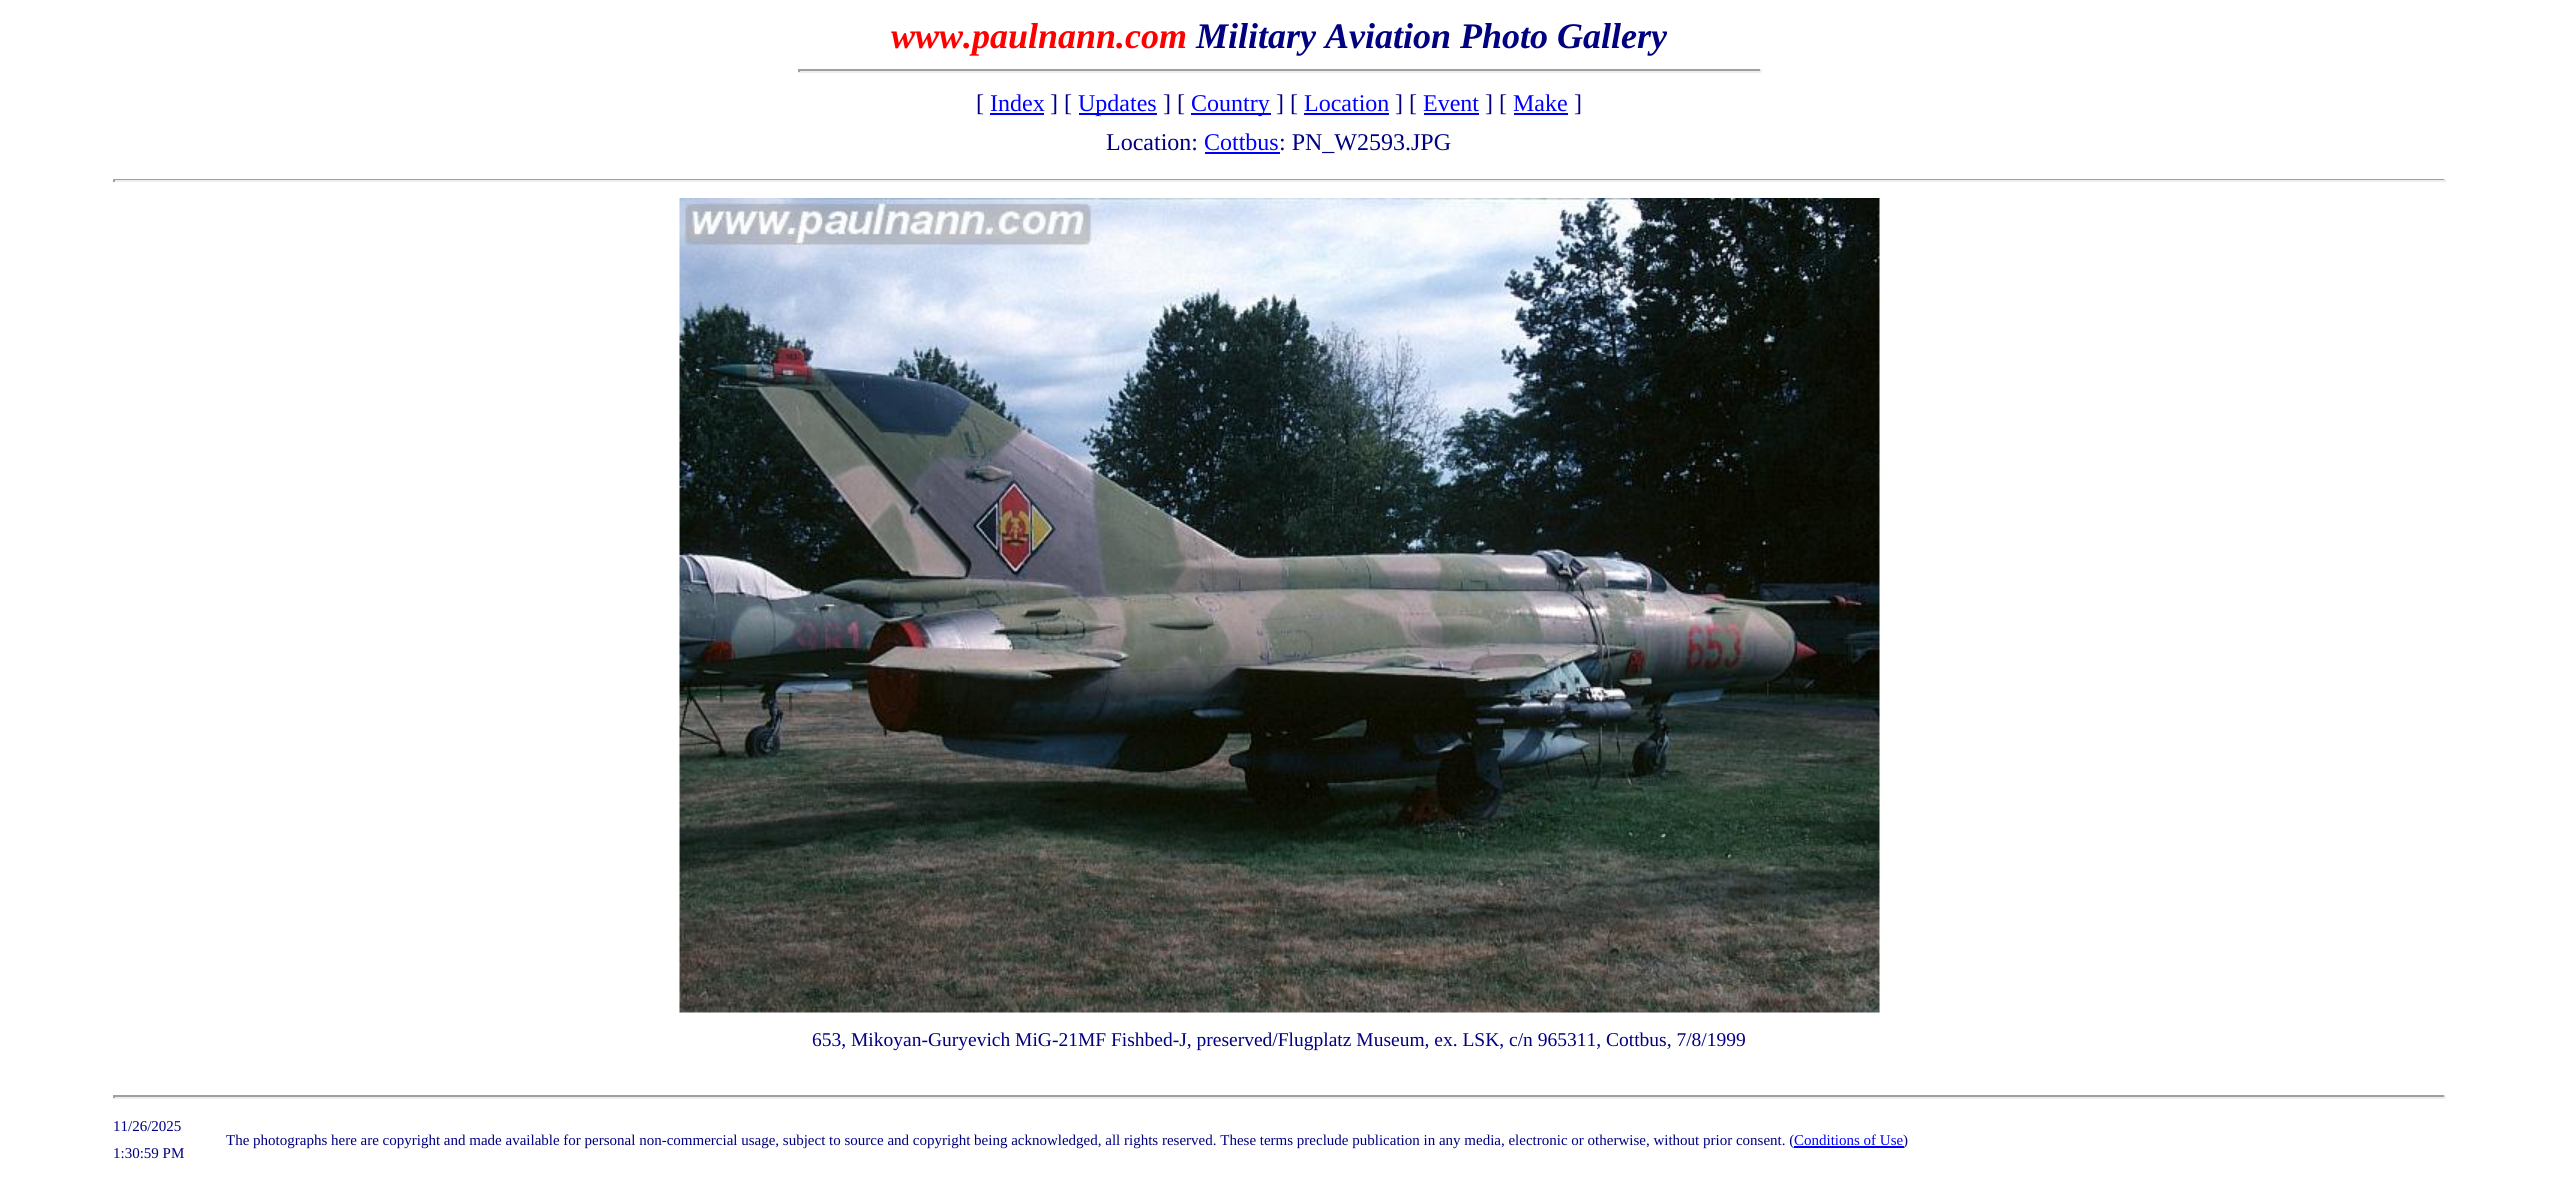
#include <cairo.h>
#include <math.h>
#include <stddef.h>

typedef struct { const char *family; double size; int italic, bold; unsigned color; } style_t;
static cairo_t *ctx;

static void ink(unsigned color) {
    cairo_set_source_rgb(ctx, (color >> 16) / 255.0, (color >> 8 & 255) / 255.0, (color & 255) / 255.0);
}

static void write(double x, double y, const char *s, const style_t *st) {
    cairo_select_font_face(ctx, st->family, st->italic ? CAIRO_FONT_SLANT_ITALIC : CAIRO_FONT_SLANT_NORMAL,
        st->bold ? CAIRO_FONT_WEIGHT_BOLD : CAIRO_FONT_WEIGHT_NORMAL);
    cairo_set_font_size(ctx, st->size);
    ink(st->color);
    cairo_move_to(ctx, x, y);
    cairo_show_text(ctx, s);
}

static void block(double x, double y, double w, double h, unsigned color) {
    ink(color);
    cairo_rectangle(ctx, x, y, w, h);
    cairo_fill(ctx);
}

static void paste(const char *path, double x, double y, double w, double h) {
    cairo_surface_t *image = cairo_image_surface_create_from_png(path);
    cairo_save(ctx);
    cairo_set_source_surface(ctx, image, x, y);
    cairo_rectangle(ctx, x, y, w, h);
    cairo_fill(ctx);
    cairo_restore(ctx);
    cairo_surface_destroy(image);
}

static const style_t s1 = {"Liberation Serif", 36, 1, 1, 0xff0000};
static const style_t s2 = {"Liberation Serif", 36, 1, 1, 0x000080};
static const style_t s3 = {"Liberation Serif", 24, 0, 0, 0x000080};
static const style_t s4 = {"Liberation Serif", 24, 0, 0, 0x0000ff};
static const style_t s5 = {"Liberation Serif", 19.5, 0, 0, 0x000080};
static const style_t s6 = {"Liberation Serif", 15, 0, 0, 0x000080};
static const style_t s7 = {"Liberation Serif", 15, 0, 0, 0x0000ff};

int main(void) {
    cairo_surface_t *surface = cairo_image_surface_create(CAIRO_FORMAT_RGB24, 2557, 1204);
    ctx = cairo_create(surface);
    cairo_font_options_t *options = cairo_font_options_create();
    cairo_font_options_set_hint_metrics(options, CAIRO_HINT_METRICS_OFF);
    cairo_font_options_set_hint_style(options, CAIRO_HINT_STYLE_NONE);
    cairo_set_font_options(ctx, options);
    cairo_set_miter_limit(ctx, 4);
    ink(0xffffff);
    cairo_paint(ctx);
    write(891, 48, "www.paulnann.com", &s1);
    write(1196, 48, "Military Aviation Photo Gallery", &s2);
    block(798, 69, 963, 2, 0x9f9f9f);
    block(1760, 69, 2, 3, 0xeeeeee);
    block(798, 71, 963, 2, 0xeeeeee);
    block(798, 69, 2, 3, 0x9f9f9f);
    write(976, 111, "[", &s3);
    write(990, 111, "Index", &s4);
    block(990, 113, 54, 2, 0x0000ff);
    write(1050, 111, "] [", &s3);
    block(1079, 113, 78, 2, 0x0000ff);
    write(1078, 111, "Updates", &s4);
    write(1163, 111, "] [", &s3);
    block(1191, 113, 80, 2, 0x0000ff);
    write(1191, 111, "Country", &s4);
    write(1276, 111, "] [", &s3);
    write(1304, 111, "Location", &s4);
    block(1304, 113, 85, 2, 0x0000ff);
    write(1395, 111, "] [", &s3);
    write(1423, 111, "Event", &s4);
    block(1424, 113, 55, 2, 0x0000ff);
    write(1485, 111, "] [", &s3);
    write(1513, 111, "Make", &s4);
    block(1514, 113, 54, 2, 0x0000ff);
    write(1574, 111, "]", &s3);
    write(1106, 150, "Location:", &s3);
    write(1204, 150, "Cottbus", &s4);
    block(1205, 152, 75, 2, 0x0000ff);
    write(1279, 150, ": PN_W2593.JPG", &s3);
    block(113, 179, 2332, 1, 0x9f9f9f);
    block(2444, 179, 2, 3, 0xeeeeee);
    block(113, 180, 2332, 2, 0xeeeeee);
    block(113, 179, 2, 3, 0x9f9f9f);
    paste("pic1.png", 679, 198, 1201, 815);
    write(812, 1046, "653, Mikoyan-Guryevich MiG-21MF Fishbed-J, preserved/Flugplatz Museum, ex. LSK, c/n 965311, Cottbus, 7/8/1999", &s5);
    block(113, 1095, 2332, 2, 0x9f9f9f);
    block(2444, 1095, 2, 3, 0xeeeeee);
    block(113, 1097, 2332, 2, 0xeeeeee);
    block(113, 1095, 2, 3, 0x9f9f9f);
    write(113, 1131, "11/26/2025", &s6);
    write(113, 1158, "1:30:59 PM", &s6);
    write(226, 1145, "The photographs here are copyright and made available for personal non-commercial usage, subject to source and copyright being acknowledged, all rights reserved. These terms preclude publication in any media, electronic or otherwise, without prior consent. (", &s6);
    block(1794, 1146, 110, 2, 0x0000ff);
    write(1794, 1145, "Conditions of Use", &s7);
    write(1903, 1145, ")", &s6);
    cairo_surface_write_to_png(surface, "screenshot.png");
    cairo_font_options_destroy(options);
    cairo_destroy(ctx);
    cairo_surface_destroy(surface);
    return 0;
}
